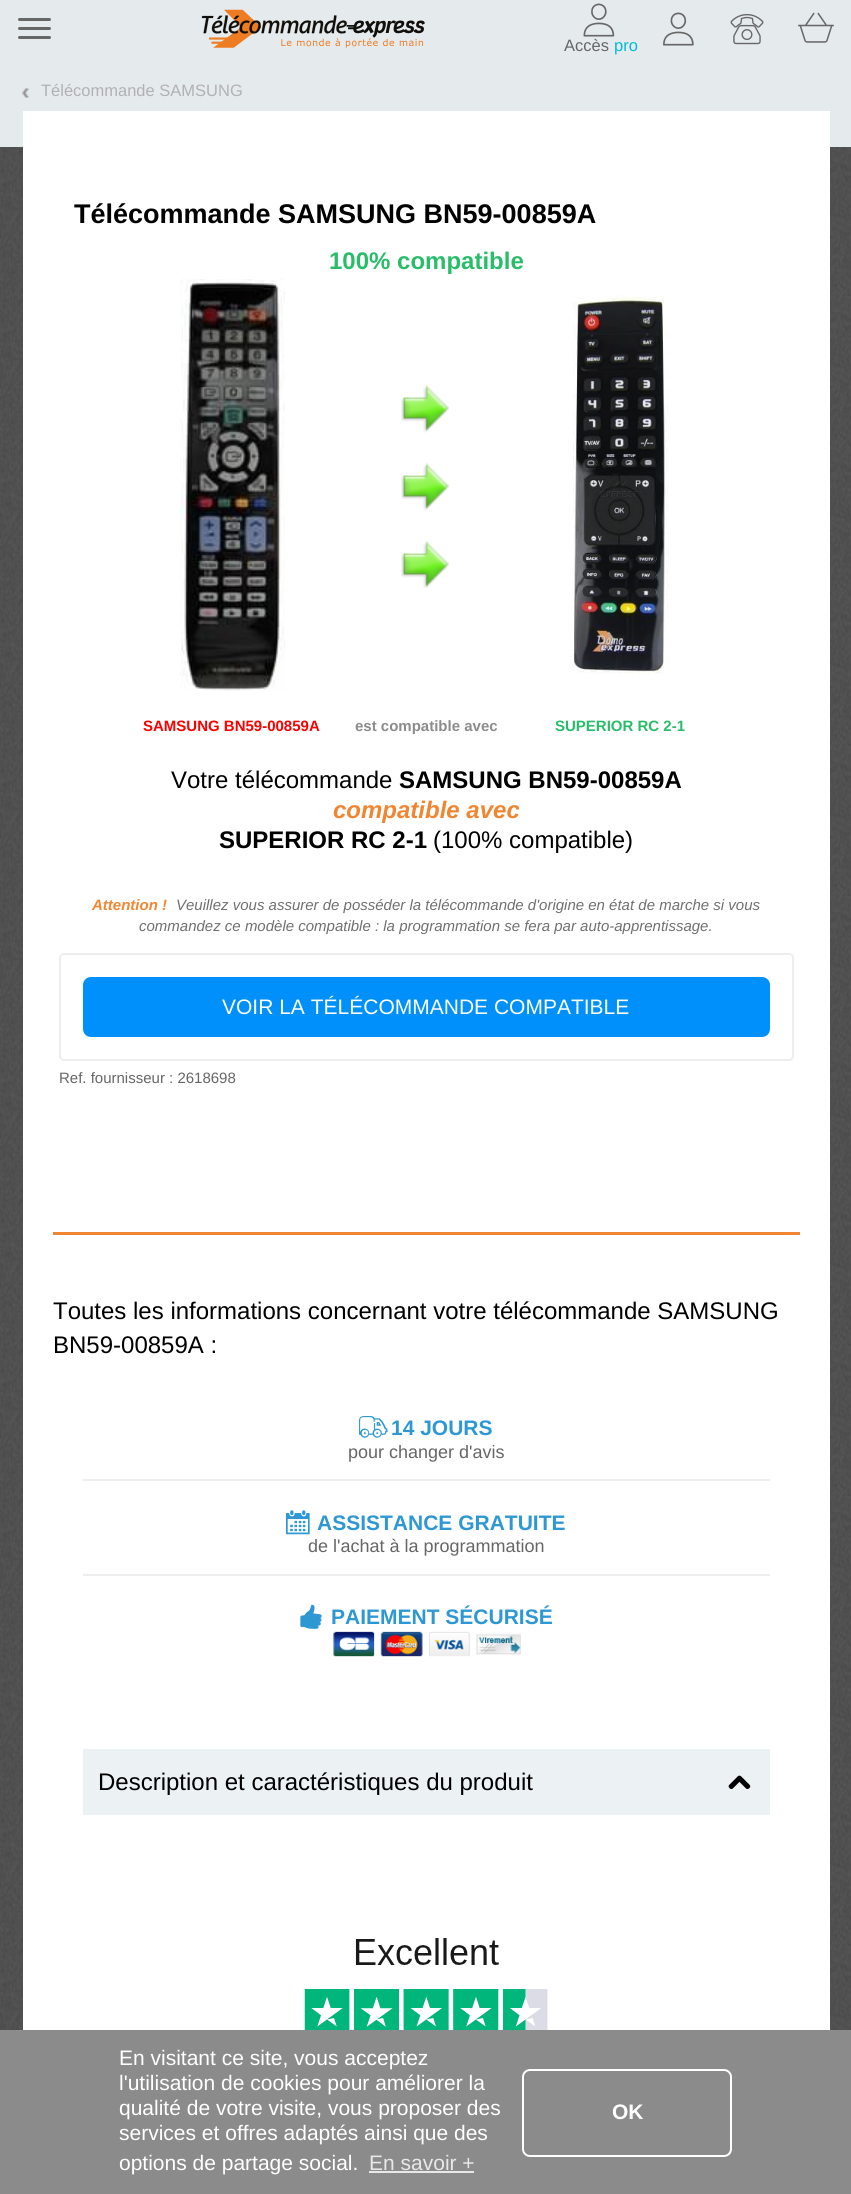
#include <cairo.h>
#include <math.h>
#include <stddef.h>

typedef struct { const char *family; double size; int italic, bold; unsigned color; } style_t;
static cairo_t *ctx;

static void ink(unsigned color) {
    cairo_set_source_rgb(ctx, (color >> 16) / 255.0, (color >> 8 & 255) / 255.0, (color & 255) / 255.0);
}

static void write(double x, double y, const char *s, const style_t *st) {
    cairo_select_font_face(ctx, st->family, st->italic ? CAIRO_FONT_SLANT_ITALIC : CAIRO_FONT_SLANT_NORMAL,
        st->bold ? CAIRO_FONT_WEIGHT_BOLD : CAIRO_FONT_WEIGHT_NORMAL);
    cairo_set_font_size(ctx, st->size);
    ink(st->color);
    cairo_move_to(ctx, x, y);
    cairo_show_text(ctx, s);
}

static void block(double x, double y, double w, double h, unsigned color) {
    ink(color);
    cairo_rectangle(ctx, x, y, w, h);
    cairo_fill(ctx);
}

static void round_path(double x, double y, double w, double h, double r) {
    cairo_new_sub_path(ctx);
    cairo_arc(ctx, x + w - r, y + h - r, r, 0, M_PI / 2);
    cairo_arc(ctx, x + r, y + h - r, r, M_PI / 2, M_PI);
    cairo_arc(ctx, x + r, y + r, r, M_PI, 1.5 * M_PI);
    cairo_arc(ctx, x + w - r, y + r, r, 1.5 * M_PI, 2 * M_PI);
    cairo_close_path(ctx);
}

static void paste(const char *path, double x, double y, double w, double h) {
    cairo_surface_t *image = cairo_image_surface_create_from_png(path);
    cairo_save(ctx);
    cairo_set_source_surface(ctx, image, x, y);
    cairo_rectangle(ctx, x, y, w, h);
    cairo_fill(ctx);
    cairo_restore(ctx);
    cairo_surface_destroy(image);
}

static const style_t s1 = {"Liberation Sans", 16.5, 0, 0, 0x666666};
static const style_t s2 = {"Liberation Sans", 16.5, 0, 0, 0x00bbd6};
static const style_t s3 = {"Liberation Sans", 16.5, 0, 0, 0xb1b1b1};
static const style_t s4 = {"Liberation Sans", 27, 0, 1, 0x000000};
static const style_t s5 = {"Liberation Sans", 24, 0, 1, 0x29bd6a};
static const style_t s6 = {"Liberation Sans", 15, 0, 1, 0xfd0000};
static const style_t s7 = {"Liberation Sans", 15, 0, 1, 0x8c8c8c};
static const style_t s8 = {"Liberation Sans", 15, 0, 1, 0x29bd6a};
static const style_t s9 = {"Liberation Sans", 24, 0, 0, 0x000000};
static const style_t s10 = {"Liberation Sans", 24, 0, 1, 0x000000};
static const style_t s11 = {"Liberation Sans", 24, 1, 1, 0xf18632};
static const style_t s12 = {"Liberation Sans", 15, 1, 1, 0xf18632};
static const style_t s13 = {"Liberation Sans", 15, 1, 0, 0x707070};
static const style_t s14 = {"Liberation Sans", 21, 0, 0, 0xffffff};
static const style_t s15 = {"Liberation Sans", 15, 0, 0, 0x666666};
static const style_t s16 = {"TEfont", 24, 0, 0, 0x2e98d4};
static const style_t s17 = {"Liberation Sans", 21, 0, 1, 0x2e98d4};
static const style_t s18 = {"Liberation Sans", 18, 0, 0, 0x666666};
static const style_t s19 = {"Liberation Sans", 21, 0, 0, 0xe8e8e8};
static const style_t s20 = {"Liberation Sans", 21, 0, 1, 0xffffff};

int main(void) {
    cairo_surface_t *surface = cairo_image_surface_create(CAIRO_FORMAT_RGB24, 851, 2194);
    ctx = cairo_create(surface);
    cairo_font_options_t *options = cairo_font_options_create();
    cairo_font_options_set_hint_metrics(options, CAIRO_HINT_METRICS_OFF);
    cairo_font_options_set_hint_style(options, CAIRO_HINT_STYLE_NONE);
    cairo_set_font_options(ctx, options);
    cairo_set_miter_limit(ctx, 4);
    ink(0xffffff);
    cairo_paint(ctx);
    paste("pic1.png", 0, 147, 851, 1883);
    block(0, 0, 851, 147, 0xe5eaed);
    ink(0x676767);
    round_path(18, 18, 33, 3, 1.5);
    cairo_fill(ctx);
    round_path(18, 27, 33, 3, 1.5);
    cairo_fill(ctx);
    round_path(18, 36, 33, 3, 1.5);
    cairo_fill(ctx);
    paste("pic2.png", 201, 9, 224, 39);
    paste("pic3.png", 583, 3, 32, 34);
    write(564, 51, "Accès", &s1);
    write(614, 51, "pro", &s2);
    paste("pic4.png", 663, 12, 31, 34);
    paste("pic5.png", 730, 14, 34, 31);
    paste("pic6.png", 798, 12, 36, 31);
    paste("pic7.png", 22, 88, 7, 10);
    write(41, 96, "Télécommande SAMSUNG", &s3);
    block(23, 111, 807, 1919, 0xffffff);
    block(53, 1232, 747, 3, 0xf18632);
    write(74, 223, "Télécommande SAMSUNG BN59-00859A", &s4);
    write(329, 269, "100% compatible", &s5);
    paste("pic8.png", 180, 279, 105, 412);
    write(143, 731, "SAMSUNG BN59-00859A", &s6);
    paste("pic9.png", 401, 385, 48, 203);
    write(355, 731, "est compatible avec", &s7);
    paste("pic10.png", 572, 295, 97, 379);
    write(555, 731, "SUPERIOR RC 2-1", &s8);
    write(171, 788, "Votre télécommande", &s9);
    write(399, 788, "SAMSUNG BN59-00859A", &s10);
    write(333, 818, "compatible avec", &s11);
    write(219, 848, "SUPERIOR RC 2-1", &s10);
    write(433, 848, "(100% compatible)", &s9);
    write(92, 910, "Attention !", &s12);
    write(176, 910, "Veuillez vous assurer de posséder la télécommande d'origine en état de marche si vous", &s13);
    write(139, 931, "commandez ce modèle compatible : la programmation se fera par auto-apprentissage.", &s13);
    round_path(60, 954, 733, 106, 4);
    ink(0xeeeeee);
    cairo_stroke(ctx);
    ink(0x0090fb);
    round_path(83, 977, 687, 60, 8);
    cairo_fill(ctx);
    write(222, 1014, "VOIR LA TÉLÉCOMMANDE COMPATIBLE", &s14);
    write(59, 1083, "Ref. fournisseur : 2618698", &s15);
    write(53, 1319, "Toutes les informations concernant votre télécommande SAMSUNG", &s9);
    write(53, 1353, "BN59-00859A :", &s9);
    block(83, 1479, 687, 2, 0xeeeeee);
    write(359, 1435, "9", &s16);
    write(391, 1435, "14 JOURS", &s17);
    write(348, 1458, "pour changer d'avis", &s18);
    block(83, 1574, 687, 2, 0xeeeeee);
    write(286, 1530, "=", &s16);
    write(317, 1530, "ASSISTANCE GRATUITE", &s17);
    write(308, 1552, "de l'achat à la programmation", &s18);
    write(299, 1624, "4", &s16);
    write(331, 1624, "PAIEMENT SÉCURISÉ", &s17);
    paste("pic11.png", 333, 1631, 188, 26);
    block(83, 1749, 687, 66, 0xecf1f3);
    write(98, 1790, "Description et caractéristiques du produit", &s9);
    paste("pic12.png", 728, 1775, 23, 14);
    paste("pic13.png", 304, 1938, 244, 92);
    block(0, 2030, 851, 164, 0x8b8b8b);
    write(119, 2065, "En visitant ce site, vous acceptez", &s14);
    write(119, 2090, "l'utilisation de cookies pour améliorer la", &s14);
    write(119, 2115, "qualité de votre visite, vous proposer des", &s14);
    write(119, 2140, "services et offres adaptés ainsi que des", &s14);
    write(119, 2170, "options de partage social.", &s14);
    write(369, 2170, "En savoir +", &s19);
    block(369, 2171, 105, 2, 0xe8e8e8);
    round_path(523, 2070, 208, 86, 7);
    ink(0xffffff);
    cairo_stroke(ctx);
    write(612, 2119, "OK", &s20);
    cairo_surface_write_to_png(surface, "screenshot.png");
    cairo_font_options_destroy(options);
    cairo_destroy(ctx);
    cairo_surface_destroy(surface);
    return 0;
}
